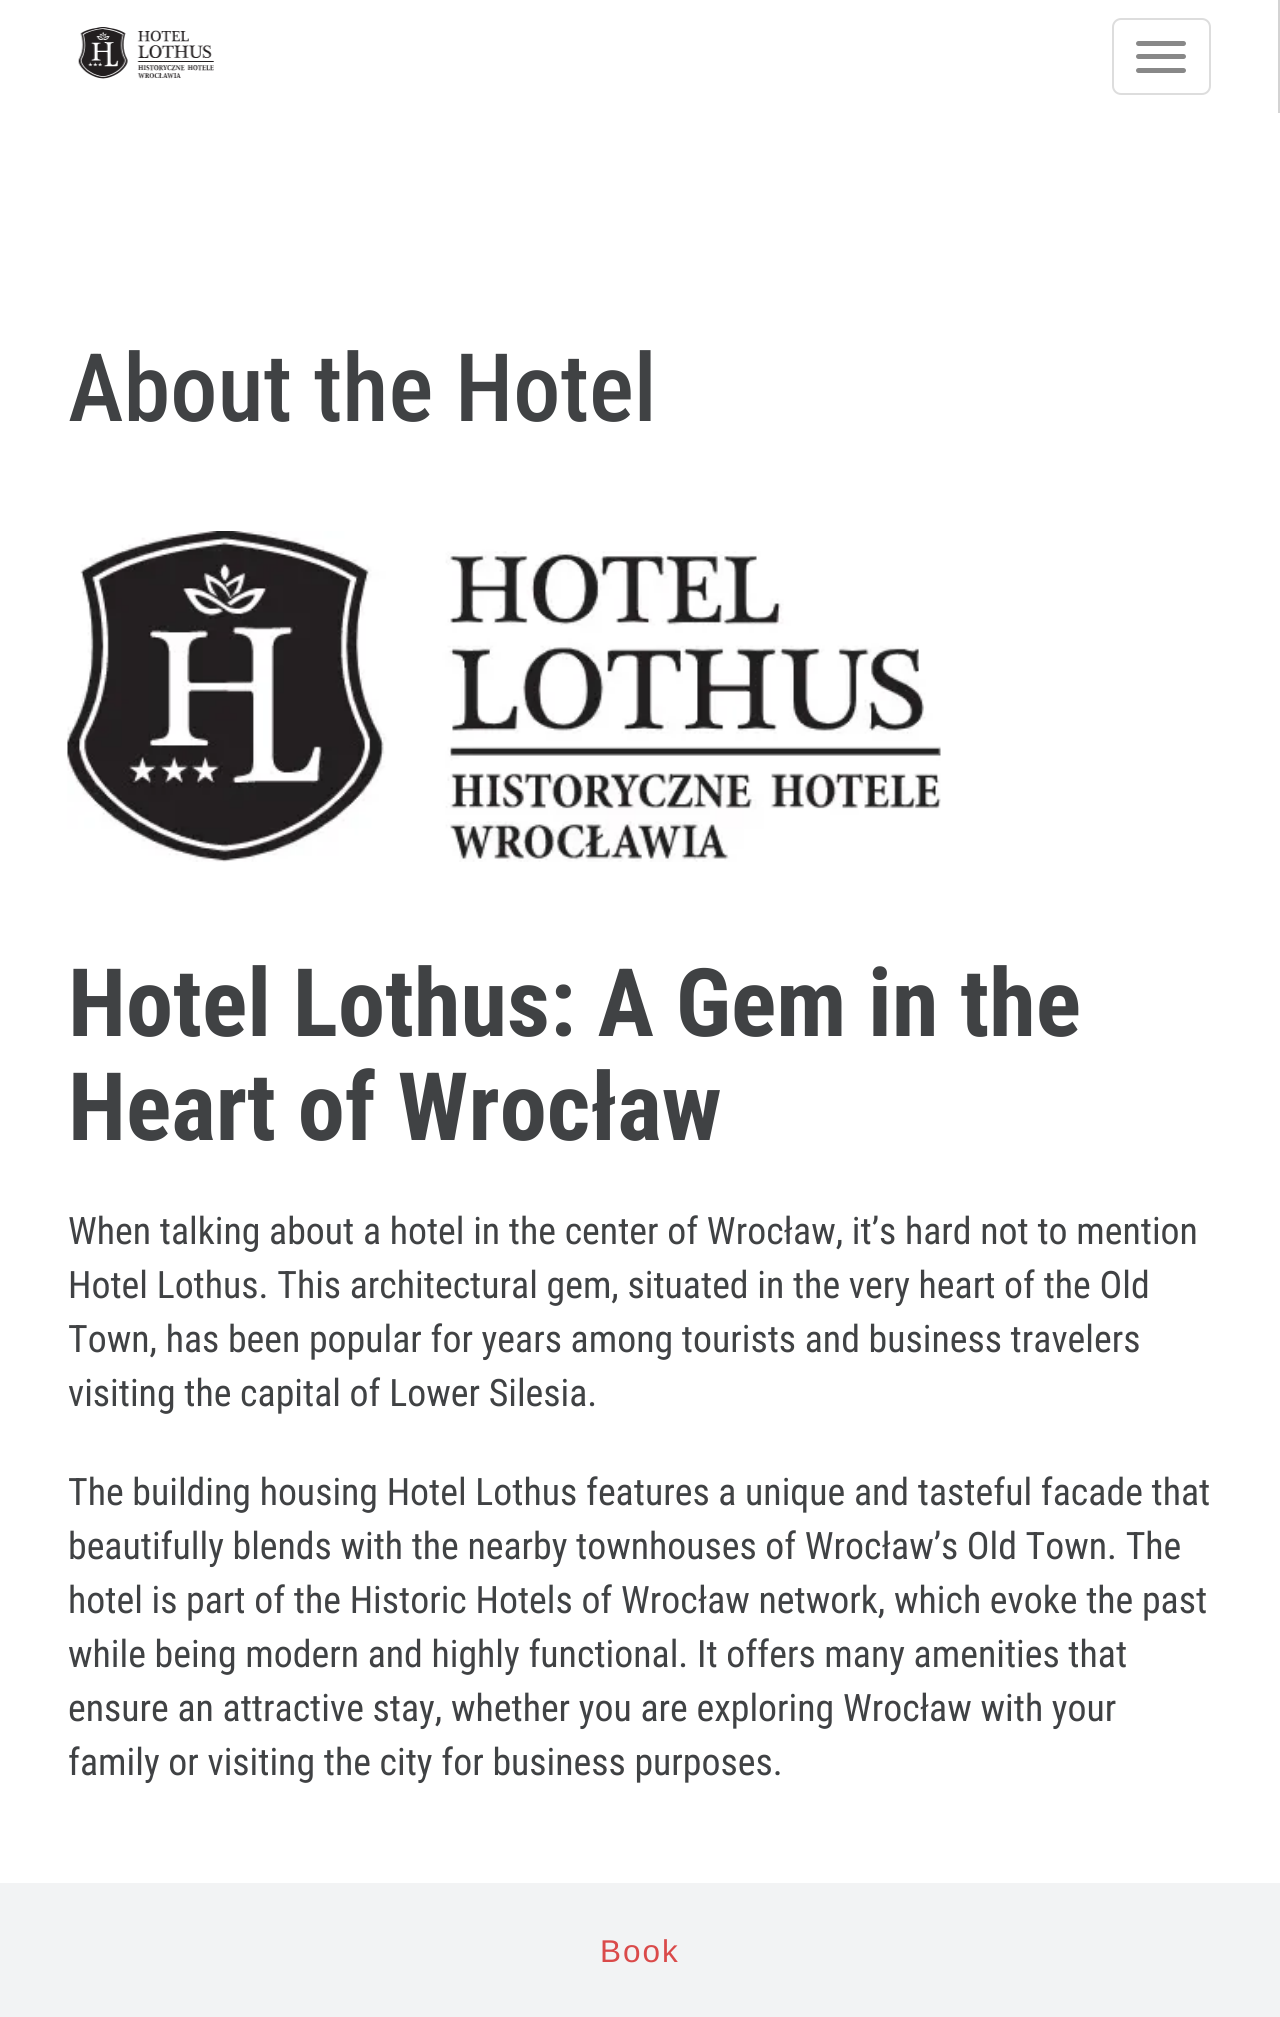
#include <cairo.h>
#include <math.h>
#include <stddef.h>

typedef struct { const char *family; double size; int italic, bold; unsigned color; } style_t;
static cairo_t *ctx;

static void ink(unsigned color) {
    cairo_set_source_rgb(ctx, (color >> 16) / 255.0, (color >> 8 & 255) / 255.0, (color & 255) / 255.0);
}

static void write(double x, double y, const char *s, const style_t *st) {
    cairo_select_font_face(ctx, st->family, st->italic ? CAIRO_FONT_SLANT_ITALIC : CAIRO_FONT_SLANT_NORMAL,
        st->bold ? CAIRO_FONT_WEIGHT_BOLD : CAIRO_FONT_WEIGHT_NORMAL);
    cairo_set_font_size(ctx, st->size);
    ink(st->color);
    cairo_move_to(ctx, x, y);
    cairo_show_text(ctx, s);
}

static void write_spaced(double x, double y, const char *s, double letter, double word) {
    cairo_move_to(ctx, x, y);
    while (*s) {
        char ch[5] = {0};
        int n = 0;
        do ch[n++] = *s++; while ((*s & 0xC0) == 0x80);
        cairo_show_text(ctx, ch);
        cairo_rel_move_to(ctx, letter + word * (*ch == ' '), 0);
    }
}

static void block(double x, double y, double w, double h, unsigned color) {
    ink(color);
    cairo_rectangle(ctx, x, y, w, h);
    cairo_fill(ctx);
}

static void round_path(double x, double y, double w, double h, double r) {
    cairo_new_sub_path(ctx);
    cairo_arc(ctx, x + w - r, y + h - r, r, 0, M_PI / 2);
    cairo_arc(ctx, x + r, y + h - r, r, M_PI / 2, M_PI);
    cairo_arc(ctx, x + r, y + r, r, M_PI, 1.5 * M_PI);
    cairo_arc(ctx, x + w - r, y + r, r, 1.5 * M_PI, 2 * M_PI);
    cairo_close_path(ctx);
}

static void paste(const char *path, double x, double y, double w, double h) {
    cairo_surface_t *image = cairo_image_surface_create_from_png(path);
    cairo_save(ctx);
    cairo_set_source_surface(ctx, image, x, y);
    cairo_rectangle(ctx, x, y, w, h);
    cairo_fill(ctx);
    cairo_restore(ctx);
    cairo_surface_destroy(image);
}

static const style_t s1 = {"Roboto Condensed Medium", 94.5, 0, 0, 0x404244};
static const style_t s2 = {"Roboto Condensed", 94.5, 0, 1, 0x404244};
static const style_t s3 = {"Roboto Condensed", 37.8, 0, 0, 0x404244};

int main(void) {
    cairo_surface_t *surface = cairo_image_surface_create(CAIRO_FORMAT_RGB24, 1280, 2017);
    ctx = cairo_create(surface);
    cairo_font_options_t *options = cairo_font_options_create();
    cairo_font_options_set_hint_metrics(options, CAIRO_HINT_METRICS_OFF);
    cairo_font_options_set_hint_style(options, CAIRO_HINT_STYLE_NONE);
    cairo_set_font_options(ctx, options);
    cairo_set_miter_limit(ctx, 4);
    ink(0xffffff);
    cairo_paint(ctx);
    block(1278, 0, 2, 113, 0xd3d3d3);
    paste("pic1.png", 78, 27, 136, 52);
    round_path(1113, 19, 97, 75, 8);
    ink(0xdddddd);
    cairo_stroke(ctx);
    ink(0x888888);
    round_path(1136, 41, 50, 5, 2.5);
    cairo_fill(ctx);
    round_path(1136, 54, 50, 5, 2.5);
    cairo_fill(ctx);
    round_path(1136, 68, 50, 5, 2.5);
    cairo_fill(ctx);
    write(68, 421, "About the Hotel", &s1);
    paste("pic2.png", 67, 531, 874, 331);
    write(68, 1036, "Hotel Lothus: A Gem in the", &s2);
    write(68, 1140, "Heart of Wrocław", &s2);
    write(68, 1244, "When talking about a hotel in the center of Wrocław, it’s hard not to mention", &s3);
    write(68, 1298, "Hotel Lothus. This architectural gem, situated in the very heart of the Old", &s3);
    write(68, 1352, "Town, has been popular for years among tourists and business travelers", &s3);
    write(68, 1406, "visiting the capital of Lower Silesia.", &s3);
    write(68, 1505, "The building housing Hotel Lothus features a unique and tasteful facade that", &s3);
    write_spaced(68, 1559, "beautifully blends with the nearby townhouses of Wrocław’s Old Town. The", 0, -0.1);
    write(68, 1613, "hotel is part of the Historic Hotels of Wrocław network, which evoke the past", &s3);
    write(68, 1667, "while being modern and highly functional. It offers many amenities that", &s3);
    write(68, 1721, "ensure an attractive stay, whether you are exploring Wrocław with your", &s3);
    write(68, 1775, "family or visiting the city for business purposes.", &s3);
    block(0, 1883, 1280, 134, 0xf2f3f4);
    cairo_select_font_face(ctx, "Liberation Sans", CAIRO_FONT_SLANT_NORMAL, CAIRO_FONT_WEIGHT_NORMAL);
    cairo_set_font_size(ctx, 31.5);
    ink(0xda4a4a);
    write_spaced(600, 1962, "Book", 2, 0);
    cairo_surface_write_to_png(surface, "screenshot.png");
    cairo_font_options_destroy(options);
    cairo_destroy(ctx);
    cairo_surface_destroy(surface);
    return 0;
}
